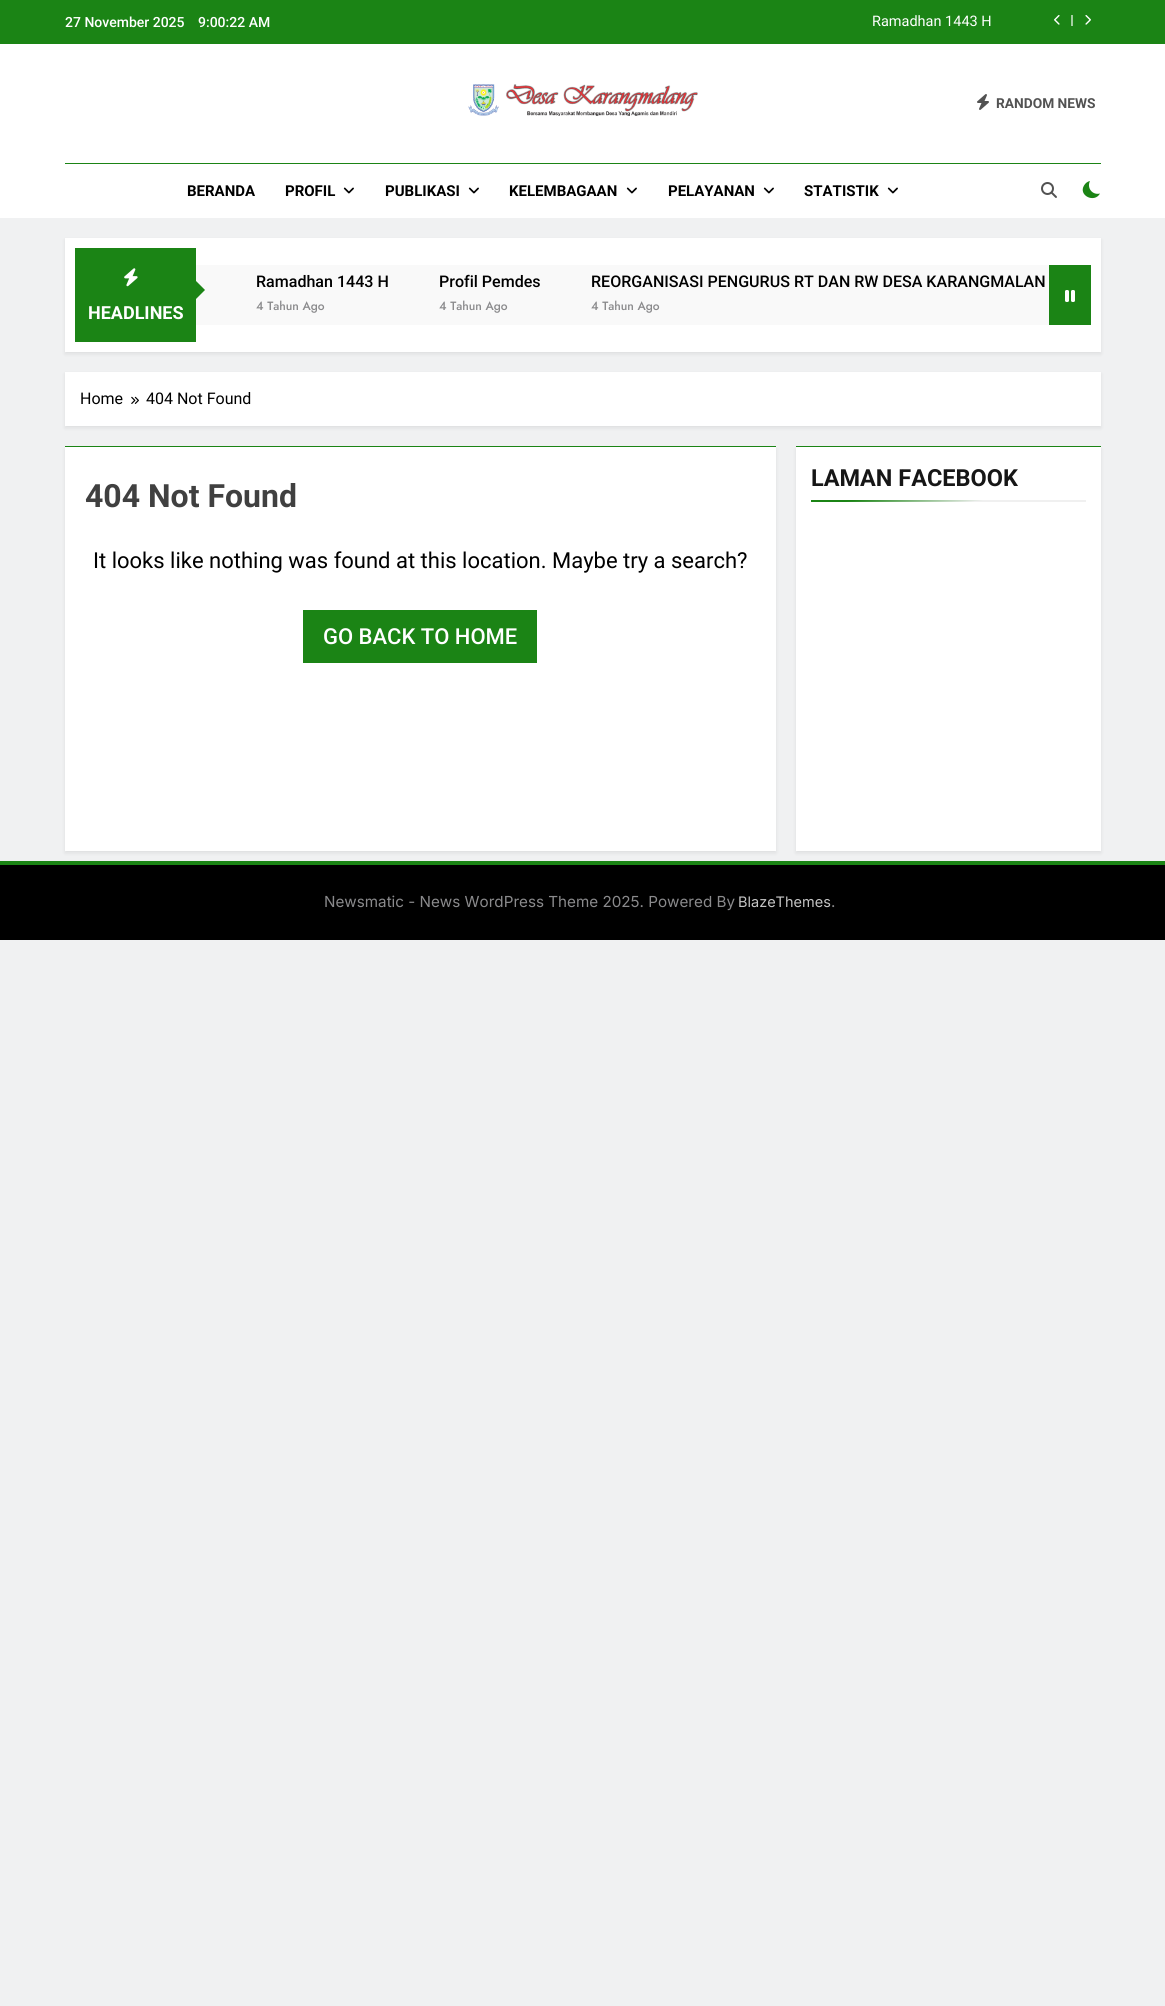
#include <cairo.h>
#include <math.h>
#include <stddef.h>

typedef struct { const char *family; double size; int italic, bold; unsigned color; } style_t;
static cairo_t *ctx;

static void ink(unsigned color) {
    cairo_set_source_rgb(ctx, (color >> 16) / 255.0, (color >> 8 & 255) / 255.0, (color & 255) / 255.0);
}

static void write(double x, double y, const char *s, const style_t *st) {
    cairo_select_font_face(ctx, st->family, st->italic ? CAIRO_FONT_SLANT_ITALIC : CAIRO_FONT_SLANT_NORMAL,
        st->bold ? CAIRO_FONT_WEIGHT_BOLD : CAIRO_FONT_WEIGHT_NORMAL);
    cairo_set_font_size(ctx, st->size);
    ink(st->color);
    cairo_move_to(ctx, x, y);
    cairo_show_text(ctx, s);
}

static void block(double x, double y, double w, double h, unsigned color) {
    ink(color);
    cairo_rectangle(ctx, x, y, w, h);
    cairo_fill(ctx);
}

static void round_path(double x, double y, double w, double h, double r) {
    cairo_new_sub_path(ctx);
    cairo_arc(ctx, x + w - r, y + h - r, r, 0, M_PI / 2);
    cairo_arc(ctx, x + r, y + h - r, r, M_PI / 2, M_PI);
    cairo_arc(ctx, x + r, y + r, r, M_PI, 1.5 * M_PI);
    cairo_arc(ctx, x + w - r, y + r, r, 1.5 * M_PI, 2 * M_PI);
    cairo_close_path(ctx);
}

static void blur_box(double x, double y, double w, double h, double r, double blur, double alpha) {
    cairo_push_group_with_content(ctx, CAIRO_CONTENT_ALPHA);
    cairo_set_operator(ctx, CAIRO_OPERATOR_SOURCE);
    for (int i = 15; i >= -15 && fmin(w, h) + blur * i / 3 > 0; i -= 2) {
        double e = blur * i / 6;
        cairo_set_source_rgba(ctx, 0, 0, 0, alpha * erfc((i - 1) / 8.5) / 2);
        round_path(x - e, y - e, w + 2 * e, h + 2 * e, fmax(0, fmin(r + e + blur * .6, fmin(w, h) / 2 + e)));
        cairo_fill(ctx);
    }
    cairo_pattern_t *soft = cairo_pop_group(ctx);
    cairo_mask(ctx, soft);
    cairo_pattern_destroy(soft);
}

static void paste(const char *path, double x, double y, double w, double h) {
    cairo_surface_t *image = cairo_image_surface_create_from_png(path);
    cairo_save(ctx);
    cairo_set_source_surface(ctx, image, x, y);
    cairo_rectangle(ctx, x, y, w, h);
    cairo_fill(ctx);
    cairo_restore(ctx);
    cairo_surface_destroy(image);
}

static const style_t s1 = {"Roboto Medium", 14, 0, 0, 0xffffff};
static const style_t s2 = {"Roboto", 14.5, 0, 0, 0xffffff};
static const style_t s3 = {"Roboto", 13.75, 0, 1, 0x525252};
static const style_t s4 = {"Roboto", 15, 0, 1, 0x000000};
static const style_t s5 = {"Roboto", 18, 0, 1, 0xffffff};
static const style_t s6 = {"Roboto Medium", 16.05, 0, 0, 0x000000};
static const style_t s7 = {"Jost Medium", 12, 0, 0, 0x8a8a8c};
static const style_t s8 = {"Roboto", 16, 0, 0, 0x000000};
static const style_t s9 = {"Roboto", 23.5, 0, 1, 0x161616};
static const style_t s10 = {"Roboto", 32, 0, 1, 0x404040};
static const style_t s11 = {"Roboto", 22, 0, 0, 0x000000};
static const style_t s12 = {"Roboto Medium", 22, 0, 0, 0xffffff};
static const style_t s13 = {"Inter", 15.2, 0, 0, 0x8a8a8c};
static const style_t s14 = {"Inter", 14.5, 0, 0, 0xc5c5c5};

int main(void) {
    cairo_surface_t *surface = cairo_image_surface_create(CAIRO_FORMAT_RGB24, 1165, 2006);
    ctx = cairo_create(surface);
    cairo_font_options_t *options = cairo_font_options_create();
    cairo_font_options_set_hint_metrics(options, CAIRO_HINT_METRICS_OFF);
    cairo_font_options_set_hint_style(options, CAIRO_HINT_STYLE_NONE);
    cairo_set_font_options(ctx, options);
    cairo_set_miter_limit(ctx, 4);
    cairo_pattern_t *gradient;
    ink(0xf0f1f2);
    cairo_paint(ctx);
    block(0, 0, 1165, 44, 0x1b8415);
    write(65, 27, "27 November 2025", &s1);
    write(198, 27, "9:00:22 AM", &s1);
    write(872, 26, "Ramadhan 1443 H", &s2);
    paste("pic1.png", 1054, 15, 6, 10);
    block(1071, 15, 2, 11, 0xa4cea1);
    paste("pic2.png", 1085, 15, 6, 10);
    block(0, 44, 1165, 174, 0xffffff);
    paste("pic3.png", 468, 84, 230, 32);
    paste("pic4.png", 977, 94, 12, 16);
    write(996, 108, "RANDOM NEWS", &s3);
    block(65, 163, 1036, 1, 0x1b8415);
    write(187, 196, "BERANDA", &s4);
    write(285, 196, "PROFIL", &s4);
    paste("pic5.png", 343, 187, 11, 7);
    write(385, 196, "PUBLIKASI", &s4);
    paste("pic5.png", 468, 187, 11, 7);
    write(509, 196, "KELEMBAGAAN", &s4);
    paste("pic5.png", 626, 187, 11, 7);
    write(668, 196, "PELAYANAN", &s4);
    paste("pic5.png", 763, 187, 11, 7);
    write(804, 196, "STATISTIK", &s4);
    paste("pic5.png", 887, 187, 11, 7);
    paste("pic6.png", 1041, 182, 16, 16);
    ink(0x1b8415);
    cairo_new_path(ctx);
    cairo_move_to(ctx, 1100, 193.5);
    cairo_curve_to(ctx, 1092.5, 195.5, 1086.5, 188, 1090, 181);
    cairo_curve_to(ctx, 1087.5, 181.5, 1085.5, 183, 1084, 185.5);
    cairo_curve_to(ctx, 1078, 195.5, 1094.5, 203.5, 1100, 193.5);
    cairo_close_path(ctx);
    cairo_fill(ctx);
    ink(0x000000);
    blur_box(65, 240, 1036, 114, 0, 2, 0.08);
    block(65, 238, 1036, 114, 0xffffff);
    block(75, 248, 121, 94, 0x1b8415);
    paste("pic7.png", 124, 268, 14, 19);
    block(196, 265, 853, 60, 0xf9f9f9);
    ink(0x1b8415);
    cairo_new_path(ctx);
    cairo_move_to(ctx, 195, 300);
    cairo_line_to(ctx, 195, 280);
    cairo_line_to(ctx, 205, 290);
    cairo_close_path(ctx);
    cairo_fill(ctx);
    write(88, 319, "HEADLINES", &s5);
    write(256, 287, "Ramadhan 1443 H", &s6);
    write(256, 310, "4 Tahun Ago", &s7);
    write(439, 287, "Profil Pemdes", &s6);
    write(439, 310, "4 Tahun Ago", &s7);
    write(591, 287, "REORGANISASI PENGURUS RT DAN RW DESA KARANGMALAN", &s6);
    write(591, 310, "4 Tahun Ago", &s7);
    block(1049, 265, 42, 60, 0x1b8415);
    paste("pic8.png", 1065, 290, 10, 12);
    ink(0x000000);
    blur_box(65, 374, 1036, 54, 0, 2, 0.08);
    block(65, 372, 1036, 54, 0xffffff);
    write(80, 404, "Home", &s8);
    paste("pic9.png", 131, 396, 8, 8);
    write(146, 404, "404 Not Found", &s8);
    ink(0x000000);
    blur_box(796, 449, 305, 404, 0, 2, 0.08);
    block(796, 447, 305, 404, 0xffffff);
    block(796, 446, 305, 1, 0x1b8415);
    block(1017, 500, 69, 2, 0xf0f0f0);
    write(811, 486, "LAMAN FACEBOOK", &s9);
    gradient = cairo_pattern_create_linear(913, 493, 915, 509);
    cairo_pattern_add_color_stop_rgba(gradient, 0, 0.106, 0.518, 0.082, 1);
    cairo_pattern_add_color_stop_rgba(gradient, 1, 0.941, 0.941, 0.941, 1);
    cairo_set_source(ctx, gradient);
    cairo_pattern_destroy(gradient);
    cairo_rectangle(ctx, 811, 500, 206, 2);
    cairo_fill(ctx);
    ink(0x000000);
    blur_box(65, 449, 711, 404, 0, 2, 0.08);
    block(65, 447, 711, 404, 0xffffff);
    block(65, 446, 711, 1, 0x1b8415);
    write(85, 507, "404 Not Found", &s10);
    write(93, 568, "It looks like nothing was found at this location. Maybe try a search?", &s11);
    block(303, 610, 234, 53, 0x1b8415);
    write(323, 644, "GO BACK TO HOME", &s12);
    block(0, 861, 1165, 4, 0x1b8415);
    block(0, 865, 1165, 75, 0x000000);
    write(324, 907, "Newsmatic - News WordPress Theme 2025. Powered By", &s13);
    write(738, 907, "BlazeThemes", &s14);
    write(831, 907, ".", &s13);
    cairo_surface_write_to_png(surface, "screenshot.png");
    cairo_font_options_destroy(options);
    cairo_destroy(ctx);
    cairo_surface_destroy(surface);
    return 0;
}
